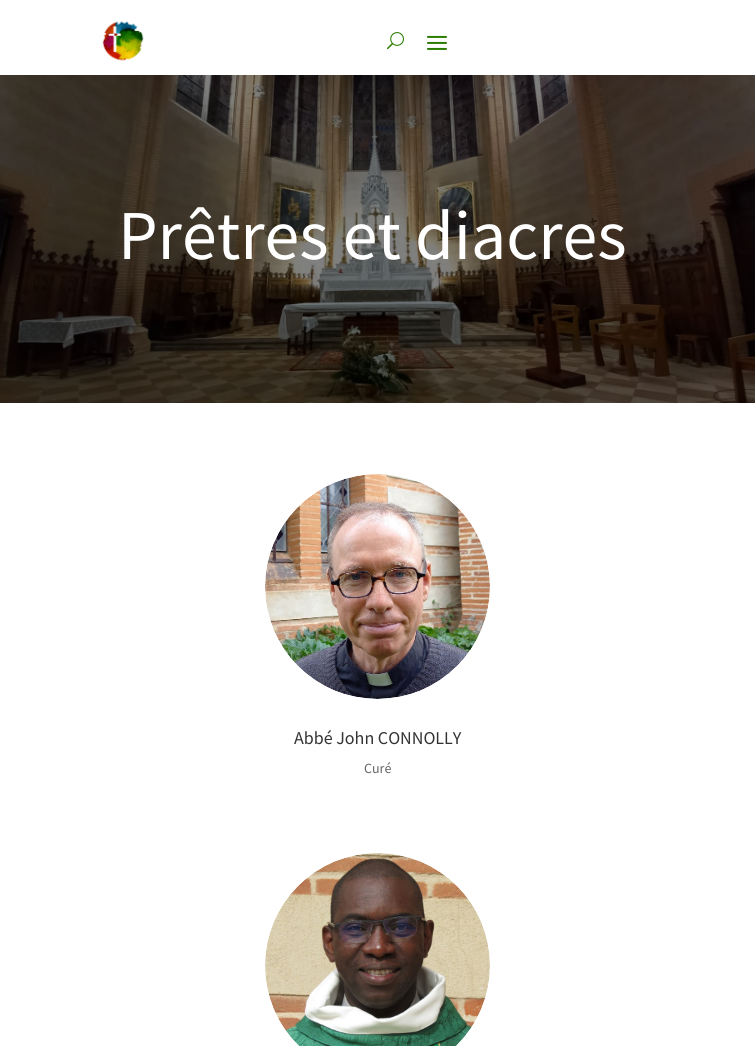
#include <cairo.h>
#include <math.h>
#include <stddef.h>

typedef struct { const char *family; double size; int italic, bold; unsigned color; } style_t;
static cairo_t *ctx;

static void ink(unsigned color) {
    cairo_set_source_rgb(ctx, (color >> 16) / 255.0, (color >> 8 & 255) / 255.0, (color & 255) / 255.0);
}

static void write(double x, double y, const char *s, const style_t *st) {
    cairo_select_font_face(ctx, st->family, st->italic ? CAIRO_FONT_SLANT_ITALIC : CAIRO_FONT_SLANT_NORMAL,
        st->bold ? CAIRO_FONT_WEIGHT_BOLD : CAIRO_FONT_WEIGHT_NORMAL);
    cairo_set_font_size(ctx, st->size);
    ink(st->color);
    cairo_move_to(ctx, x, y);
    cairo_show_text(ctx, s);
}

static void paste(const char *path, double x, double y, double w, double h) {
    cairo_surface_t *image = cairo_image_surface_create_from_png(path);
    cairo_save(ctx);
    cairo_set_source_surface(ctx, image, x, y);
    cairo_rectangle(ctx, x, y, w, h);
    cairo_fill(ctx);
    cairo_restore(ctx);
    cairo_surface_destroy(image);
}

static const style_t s1 = {"Source Sans Pro", 70, 0, 0, 0xffffff};
static const style_t s2 = {"Source Sans Pro", 18, 0, 0, 0x333333};
static const style_t s3 = {"Source Sans Pro", 14, 0, 0, 0x666666};

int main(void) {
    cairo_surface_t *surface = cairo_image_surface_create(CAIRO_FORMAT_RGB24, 755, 1046);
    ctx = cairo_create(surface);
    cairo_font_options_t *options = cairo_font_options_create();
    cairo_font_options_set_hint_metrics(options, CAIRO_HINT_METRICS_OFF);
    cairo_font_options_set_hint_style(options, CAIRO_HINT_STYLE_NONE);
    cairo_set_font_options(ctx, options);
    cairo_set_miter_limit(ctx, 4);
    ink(0xffffff);
    cairo_paint(ctx);
    paste("pic1.png", 102, 21, 42, 40);
    paste("pic2.png", 387, 32, 17, 18);
    paste("pic3.png", 427, 35, 20, 15);
    paste("pic4.png", 0, 75, 755, 328);
    write(118, 259, "Prêtres et diacres", &s1);
    paste("pic5.png", 265, 474, 225, 225);
    write(294, 744, "Abbé John CONNOLLY", &s2);
    write(364, 773, "Curé", &s3);
    paste("pic6.png", 265, 853, 225, 193);
    cairo_surface_write_to_png(surface, "screenshot.png");
    cairo_font_options_destroy(options);
    cairo_destroy(ctx);
    cairo_surface_destroy(surface);
    return 0;
}
